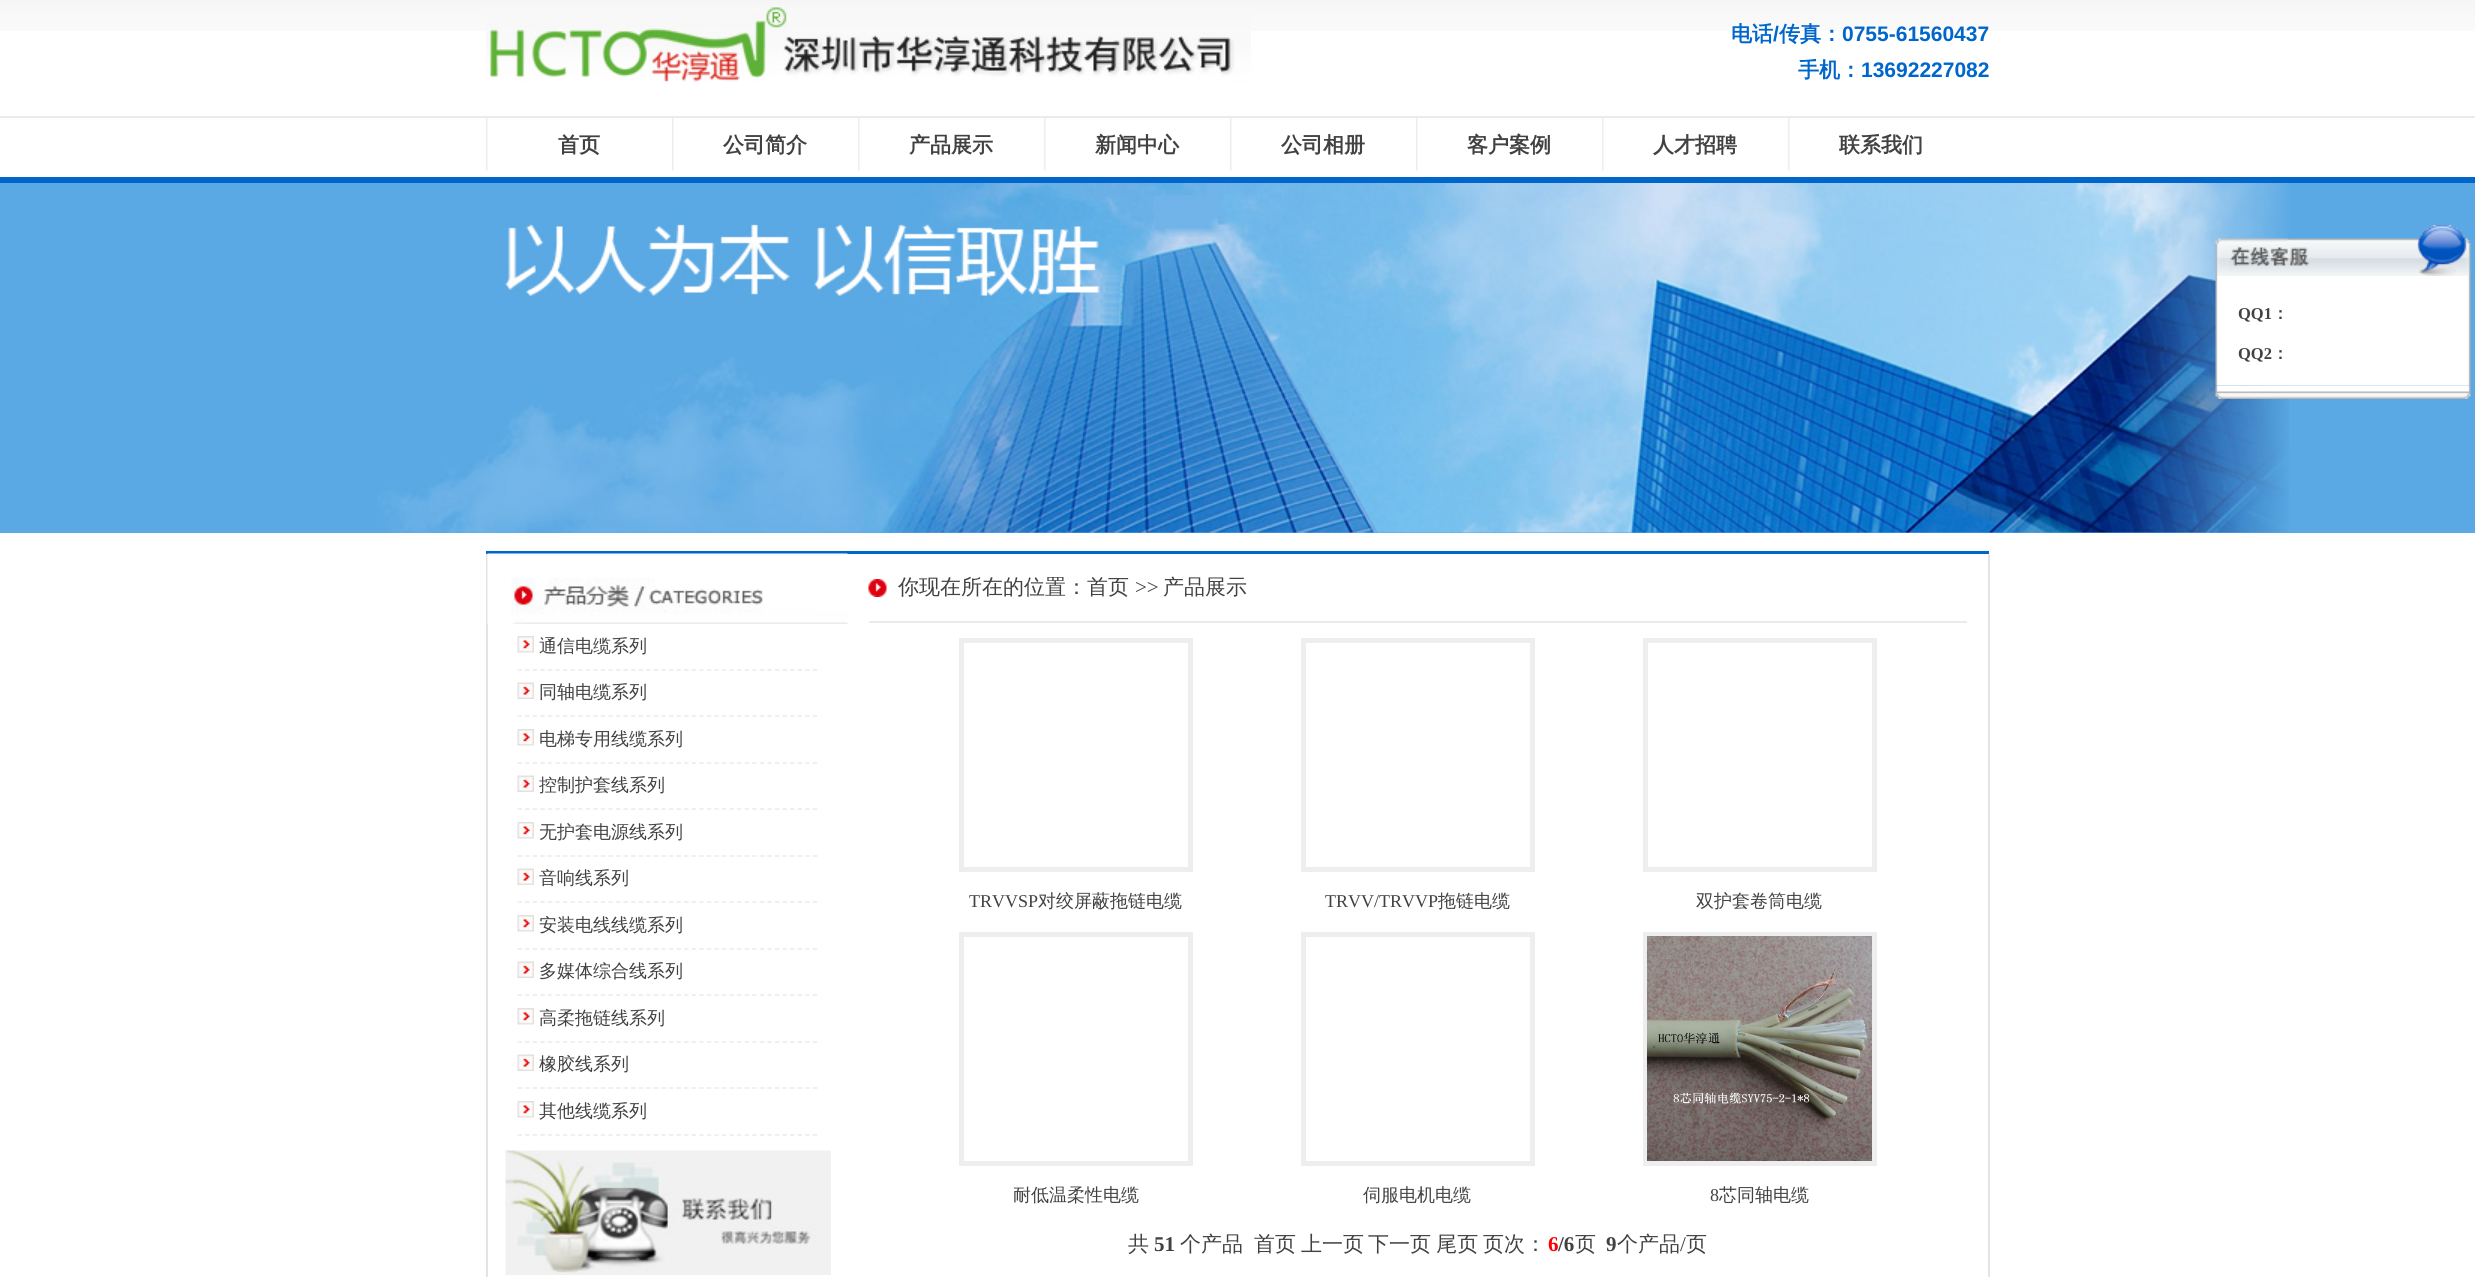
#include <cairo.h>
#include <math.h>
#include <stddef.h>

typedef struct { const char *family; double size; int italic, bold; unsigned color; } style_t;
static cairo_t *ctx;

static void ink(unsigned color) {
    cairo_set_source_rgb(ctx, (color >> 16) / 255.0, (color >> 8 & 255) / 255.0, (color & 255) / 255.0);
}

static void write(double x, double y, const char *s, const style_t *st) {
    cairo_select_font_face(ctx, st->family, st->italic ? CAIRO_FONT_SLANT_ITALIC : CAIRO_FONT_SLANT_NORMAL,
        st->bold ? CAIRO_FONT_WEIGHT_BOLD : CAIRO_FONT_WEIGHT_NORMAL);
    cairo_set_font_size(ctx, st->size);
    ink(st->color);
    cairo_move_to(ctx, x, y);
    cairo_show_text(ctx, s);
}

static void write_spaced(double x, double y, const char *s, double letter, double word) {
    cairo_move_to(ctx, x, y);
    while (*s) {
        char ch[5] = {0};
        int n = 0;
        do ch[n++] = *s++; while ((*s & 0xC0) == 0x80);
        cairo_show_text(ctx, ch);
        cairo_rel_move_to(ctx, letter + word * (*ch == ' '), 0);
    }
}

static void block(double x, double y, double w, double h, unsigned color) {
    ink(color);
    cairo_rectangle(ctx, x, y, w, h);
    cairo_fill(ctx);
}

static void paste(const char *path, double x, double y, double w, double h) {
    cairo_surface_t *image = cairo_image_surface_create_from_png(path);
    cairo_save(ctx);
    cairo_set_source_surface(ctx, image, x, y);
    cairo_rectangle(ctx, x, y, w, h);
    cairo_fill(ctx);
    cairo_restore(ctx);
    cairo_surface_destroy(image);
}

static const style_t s1 = {"WenQuanYi Zen Hei", 21, 0, 1, 0x0066cc};
static const style_t s2 = {"Liberation Sans", 21, 0, 1, 0x0066cc};
static const style_t s3 = {"WenQuanYi Zen Hei", 21, 0, 1, 0x414141};
static const style_t s4 = {"Liberation Serif", 16.5, 0, 1, 0x414141};
static const style_t s5 = {"WenQuanYi Zen Hei", 16.5, 0, 1, 0x414141};
static const style_t s6 = {"WenQuanYi Zen Hei Medium", 18, 0, 0, 0x414141};
static const style_t s7 = {"WenQuanYi Zen Hei Medium", 21, 0, 0, 0x414141};
static const style_t s8 = {"Liberation Serif", 21, 0, 0, 0x414141};
static const style_t s9 = {"Liberation Serif", 18, 0, 0, 0x414141};
static const style_t s10 = {"Liberation Serif", 21, 0, 1, 0x414141};
static const style_t s11 = {"Liberation Serif", 21, 0, 1, 0xff0000};

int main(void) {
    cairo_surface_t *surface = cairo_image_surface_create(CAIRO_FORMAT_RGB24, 2475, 1277);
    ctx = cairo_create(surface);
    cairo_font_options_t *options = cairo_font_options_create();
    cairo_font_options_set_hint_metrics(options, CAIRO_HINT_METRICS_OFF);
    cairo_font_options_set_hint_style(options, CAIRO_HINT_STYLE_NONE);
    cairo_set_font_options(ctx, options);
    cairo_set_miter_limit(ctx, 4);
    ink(0xffffff);
    cairo_paint(ctx);
    paste("pic1.png", 0, 0, 2475, 31);
    paste("pic2.png", 486, 7, 765, 75);
    write(1731, 41, "电话", &s1);
    write(1773, 41, "/", &s2);
    write(1779, 41, "传真：", &s1);
    write(1842, 41, "0755-61560437", &s2);
    write(1798, 77, "手机：", &s1);
    write(1861, 77, "13692227082", &s2);
    block(0, 116, 2475, 2, 0xebebeb);
    block(0, 177, 2475, 6, 0x0066cc);
    paste("pic3.png", 486, 118, 2, 53);
    write(558, 152, "首页", &s3);
    paste("pic3.png", 672, 118, 2, 53);
    write(723, 152, "公司简介", &s3);
    paste("pic3.png", 858, 118, 2, 53);
    write(909, 152, "产品展示", &s3);
    paste("pic3.png", 1044, 118, 2, 53);
    write(1095, 152, "新闻中心", &s3);
    paste("pic3.png", 1230, 118, 2, 53);
    write(1281, 152, "公司相册", &s3);
    paste("pic3.png", 1416, 118, 2, 53);
    write(1467, 152, "客户案例", &s3);
    paste("pic3.png", 1602, 118, 2, 53);
    write(1653, 152, "人才招聘", &s3);
    paste("pic3.png", 1788, 118, 2, 53);
    write(1839, 152, "联系我们", &s3);
    block(0, 183, 2475, 350, 0x5aa9e4);
    paste("pic4.png", 377, 183, 1912, 350);
    paste("pic5.png", 2215, 225, 256, 51);
    paste("pic6.png", 2215, 276, 256, 110);
    write(2238, 319, "QQ1", &s4);
    write(2272, 319, "：", &s5);
    write(2238, 359, "QQ2", &s4);
    write(2272, 359, "：", &s5);
    paste("pic7.png", 2215, 385, 256, 14);
    block(486, 551, 1503, 3, 0x0066cc);
    block(486, 554, 2, 723, 0xe4e4e4);
    paste("pic8.png", 487, 553, 361, 71);
    cairo_new_path(ctx);
    cairo_move_to(ctx, 517.5, 670);
    cairo_line_to(ctx, 817.5, 670);
    ink(0xebebeb);
    cairo_set_line_width(ctx, 1.5);
    cairo_set_dash(ctx, (double[]){4.5, 3.07}, 2, 0);
    cairo_stroke(ctx);
    paste("pic9.png", 517, 636, 17, 17);
    write(539, 652, "通信电缆系列", &s6);
    cairo_new_path(ctx);
    cairo_move_to(ctx, 517.5, 716);
    cairo_line_to(ctx, 817.5, 716);
    ink(0xebebeb);
    cairo_stroke(ctx);
    paste("pic10.png", 517, 682, 17, 17);
    write(539, 698, "同轴电缆系列", &s6);
    cairo_new_path(ctx);
    cairo_move_to(ctx, 517.5, 763);
    cairo_line_to(ctx, 817.5, 763);
    ink(0xebebeb);
    cairo_stroke(ctx);
    paste("pic9.png", 517, 729, 17, 17);
    write(539, 745, "电梯专用线缆系列", &s6);
    cairo_new_path(ctx);
    cairo_move_to(ctx, 517.5, 809);
    cairo_line_to(ctx, 817.5, 809);
    ink(0xebebeb);
    cairo_stroke(ctx);
    paste("pic10.png", 517, 775, 17, 17);
    write(539, 791, "控制护套线系列", &s6);
    cairo_new_path(ctx);
    cairo_move_to(ctx, 517.5, 856);
    cairo_line_to(ctx, 817.5, 856);
    ink(0xebebeb);
    cairo_stroke(ctx);
    paste("pic9.png", 517, 822, 17, 17);
    write(539, 838, "无护套电源线系列", &s6);
    cairo_new_path(ctx);
    cairo_move_to(ctx, 517.5, 902);
    cairo_line_to(ctx, 817.5, 902);
    ink(0xebebeb);
    cairo_stroke(ctx);
    paste("pic10.png", 517, 868, 17, 17);
    write(539, 884, "音响线系列", &s6);
    cairo_new_path(ctx);
    cairo_move_to(ctx, 517.5, 949);
    cairo_line_to(ctx, 817.5, 949);
    ink(0xebebeb);
    cairo_stroke(ctx);
    paste("pic9.png", 517, 915, 17, 17);
    write(539, 931, "安装电线线缆系列", &s6);
    cairo_new_path(ctx);
    cairo_move_to(ctx, 517.5, 995);
    cairo_line_to(ctx, 817.5, 995);
    ink(0xebebeb);
    cairo_stroke(ctx);
    paste("pic10.png", 517, 961, 17, 17);
    write(539, 977, "多媒体综合线系列", &s6);
    cairo_new_path(ctx);
    cairo_move_to(ctx, 517.5, 1042);
    cairo_line_to(ctx, 817.5, 1042);
    ink(0xebebeb);
    cairo_stroke(ctx);
    paste("pic9.png", 517, 1008, 17, 17);
    write(539, 1024, "高柔拖链线系列", &s6);
    cairo_new_path(ctx);
    cairo_move_to(ctx, 517.5, 1088);
    cairo_line_to(ctx, 817.5, 1088);
    ink(0xebebeb);
    cairo_stroke(ctx);
    paste("pic10.png", 517, 1054, 17, 17);
    write(539, 1070, "橡胶线系列", &s6);
    cairo_new_path(ctx);
    cairo_move_to(ctx, 517.5, 1135);
    cairo_line_to(ctx, 817.5, 1135);
    ink(0xebebeb);
    cairo_stroke(ctx);
    paste("pic9.png", 517, 1101, 17, 17);
    write(539, 1117, "其他线缆系列", &s6);
    paste("pic11.png", 505, 1150, 326, 125);
    paste("pic12.png", 868, 579, 19, 18);
    block(869, 621, 1098, 2, 0xebebeb);
    write(898, 594, "你现在所在的位置：首页", &s7);
    write(1135, 594, ">>", &s8);
    write(1163, 594, "产品展示", &s7);
    cairo_rectangle(ctx, 961.5, 640.5, 229, 229);
    ink(0xeeeeee);
    cairo_set_line_width(ctx, 5);
    cairo_set_dash(ctx, NULL, 0, 0);
    cairo_stroke(ctx);
    write(969, 907, "TRVVSP", &s9);
    write(1038, 907, "对绞屏蔽拖链电缆", &s6);
    cairo_rectangle(ctx, 1303.5, 640.5, 229, 229);
    ink(0xeeeeee);
    cairo_stroke(ctx);
    write(1325, 907, "TRVV/TRVVP", &s9);
    write(1438, 907, "拖链电缆", &s6);
    cairo_rectangle(ctx, 1645.5, 640.5, 229, 229);
    ink(0xeeeeee);
    cairo_stroke(ctx);
    write(1696, 907, "双护套卷筒电缆", &s6);
    cairo_rectangle(ctx, 961.5, 934.5, 229, 229);
    ink(0xeeeeee);
    cairo_stroke(ctx);
    write(1013, 1201, "耐低温柔性电缆", &s6);
    cairo_rectangle(ctx, 1303.5, 934.5, 229, 229);
    ink(0xeeeeee);
    cairo_stroke(ctx);
    write(1363, 1201, "伺服电机电缆", &s6);
    cairo_rectangle(ctx, 1645.5, 934.5, 229, 229);
    ink(0xeeeeee);
    cairo_stroke(ctx);
    paste("pic13.png", 1647, 936, 225, 225);
    write(1710, 1201, "8", &s9);
    write(1719, 1201, "芯同轴电缆", &s6);
    write(1128, 1251, "共", &s7);
    write(1154, 1251, "51", &s10);
    write(1180, 1251, "个产品", &s7);
    write(1254, 1251, "首页", &s7);
    write(1301, 1251, "上一页", &s7);
    write_spaced(1368, 1251, "下一页 尾页", 0, -1);
    write(1483, 1251, "页次：", &s7);
    write(1548, 1251, "6", &s11);
    write(1558, 1251, "/6", &s10);
    write(1575, 1251, "页", &s7);
    write(1606, 1251, "9", &s10);
    write(1617, 1251, "个产品", &s7);
    write(1680, 1251, "/", &s8);
    write(1686, 1251, "页", &s7);
    block(1988, 554, 2, 723, 0xe4e4e4);
    cairo_surface_write_to_png(surface, "screenshot.png");
    cairo_font_options_destroy(options);
    cairo_destroy(ctx);
    cairo_surface_destroy(surface);
    return 0;
}
